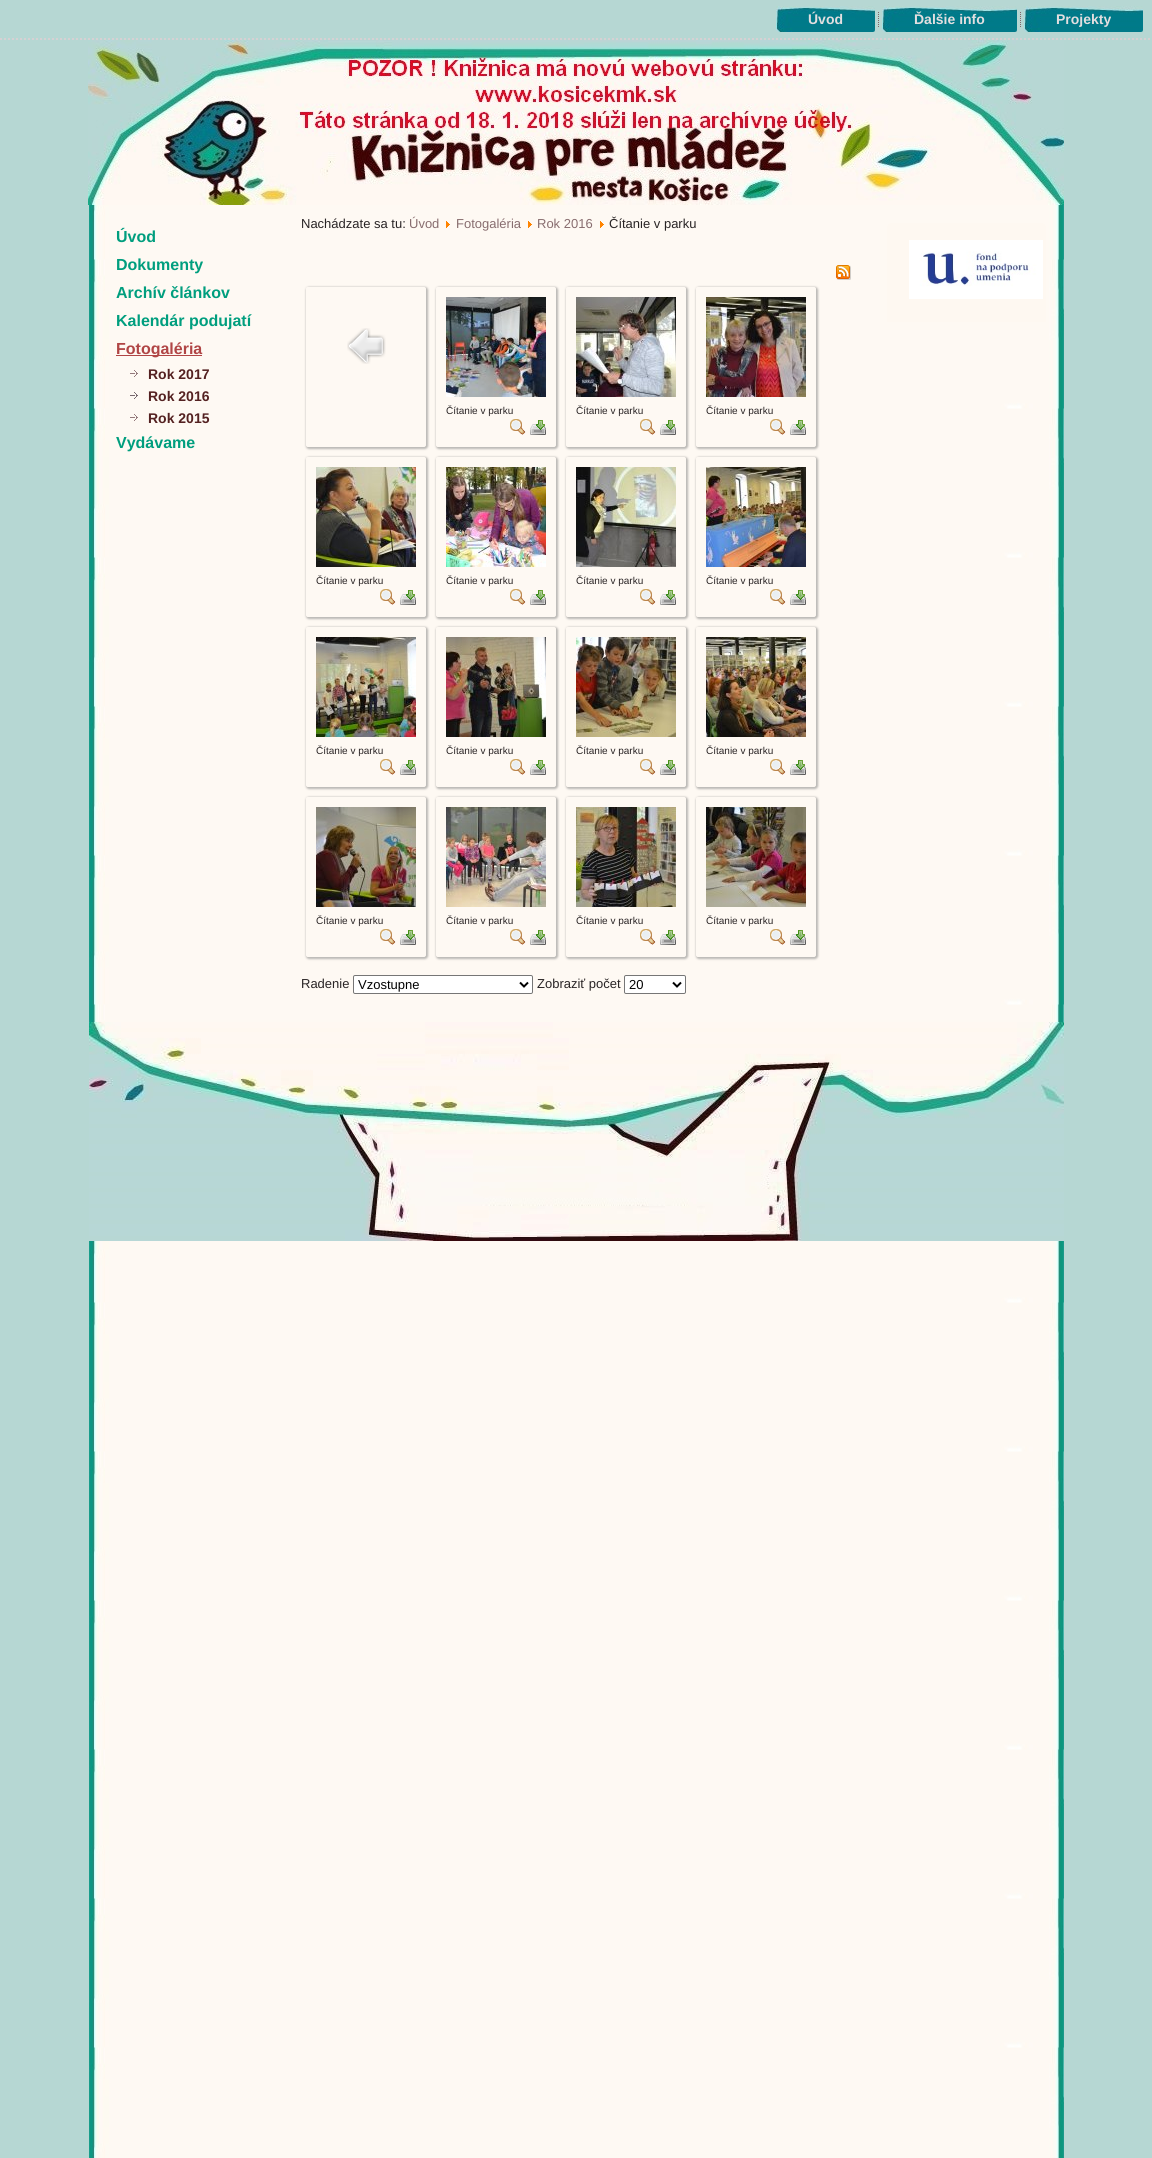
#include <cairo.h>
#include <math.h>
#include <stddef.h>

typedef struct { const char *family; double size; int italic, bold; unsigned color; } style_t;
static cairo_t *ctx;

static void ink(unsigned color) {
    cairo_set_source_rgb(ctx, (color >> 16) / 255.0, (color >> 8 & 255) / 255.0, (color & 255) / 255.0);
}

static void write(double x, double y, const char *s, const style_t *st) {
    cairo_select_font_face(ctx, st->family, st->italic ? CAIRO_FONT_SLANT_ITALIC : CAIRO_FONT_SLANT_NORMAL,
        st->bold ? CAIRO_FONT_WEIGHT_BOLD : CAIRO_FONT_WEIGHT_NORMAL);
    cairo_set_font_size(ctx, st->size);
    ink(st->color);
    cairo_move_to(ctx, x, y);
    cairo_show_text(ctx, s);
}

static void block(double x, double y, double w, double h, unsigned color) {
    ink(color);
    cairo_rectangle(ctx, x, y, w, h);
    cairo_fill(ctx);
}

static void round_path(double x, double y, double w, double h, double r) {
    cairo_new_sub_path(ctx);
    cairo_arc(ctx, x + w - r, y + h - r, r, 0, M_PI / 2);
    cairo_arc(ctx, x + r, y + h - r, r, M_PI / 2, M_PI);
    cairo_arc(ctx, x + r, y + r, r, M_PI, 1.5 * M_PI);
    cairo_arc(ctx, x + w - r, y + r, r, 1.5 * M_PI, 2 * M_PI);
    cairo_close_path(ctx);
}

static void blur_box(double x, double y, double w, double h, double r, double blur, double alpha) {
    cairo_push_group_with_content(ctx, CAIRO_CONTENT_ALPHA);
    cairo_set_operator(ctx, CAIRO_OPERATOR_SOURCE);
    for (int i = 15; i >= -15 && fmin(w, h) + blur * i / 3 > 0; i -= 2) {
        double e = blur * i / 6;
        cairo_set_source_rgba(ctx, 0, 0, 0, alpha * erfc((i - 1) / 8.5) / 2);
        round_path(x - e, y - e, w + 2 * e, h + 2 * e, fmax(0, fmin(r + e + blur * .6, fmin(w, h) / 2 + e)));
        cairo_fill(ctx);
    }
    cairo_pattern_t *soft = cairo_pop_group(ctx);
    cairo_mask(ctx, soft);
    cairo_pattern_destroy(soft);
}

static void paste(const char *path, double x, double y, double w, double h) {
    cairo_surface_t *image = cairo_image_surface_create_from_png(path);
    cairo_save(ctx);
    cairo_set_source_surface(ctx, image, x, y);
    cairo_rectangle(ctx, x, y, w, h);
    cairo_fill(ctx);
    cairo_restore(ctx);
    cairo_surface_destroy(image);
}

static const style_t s1 = {"Liberation Sans", 14, 0, 1, 0xe2dfe0};
static const style_t s2 = {"Liberation Sans", 16, 0, 1, 0x009e7e};
static const style_t s3 = {"Liberation Sans", 16, 0, 1, 0xb04545};
static const style_t s4 = {"Liberation Sans", 14, 0, 1, 0x542121};
static const style_t s5 = {"Liberation Sans", 13, 0, 0, 0x292425};
static const style_t s6 = {"Liberation Sans", 13, 0, 0, 0x886d6f};
static const style_t s7 = {"Liberation Sans", 10, 0, 0, 0x292425};
static const style_t s8 = {"Liberation Sans", 13, 0, 0, 0x000000};

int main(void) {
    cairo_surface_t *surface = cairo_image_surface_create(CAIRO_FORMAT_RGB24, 1152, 2158);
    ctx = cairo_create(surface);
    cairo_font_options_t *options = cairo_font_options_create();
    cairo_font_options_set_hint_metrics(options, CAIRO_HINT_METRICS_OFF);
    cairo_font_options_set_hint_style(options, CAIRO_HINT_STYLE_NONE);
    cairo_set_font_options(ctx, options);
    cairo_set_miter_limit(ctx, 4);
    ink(0xb6d7d3);
    cairo_paint(ctx);
    paste("pic1.png", 89, 205, 975, 1953);
    cairo_new_path(ctx);
    cairo_move_to(ctx, 0, 39);
    cairo_line_to(ctx, 1152, 39);
    ink(0xd6d1d3);
    cairo_set_dash(ctx, (double[]){2, 2}, 2, 0);
    cairo_stroke(ctx);
    paste("pic2.png", 776, 6, 99, 26);
    write(808, 24, "Úvod", &s1);
    paste("pic3.png", 878, 12, 1, 15);
    paste("pic4.png", 882, 6, 135, 26);
    write(914, 24, "Ďalšie info", &s1);
    paste("pic3.png", 1020, 12, 1, 15);
    paste("pic5.png", 1024, 6, 119, 26);
    write(1056, 24, "Projekty", &s1);
    paste("pic6.png", 88, 40, 976, 165);
    write(116, 242, "Úvod", &s2);
    write(116, 270, "Dokumenty", &s2);
    write(116, 298, "Archív článkov", &s2);
    write(116, 326, "Kalendár podujatí", &s2);
    block(116, 355, 86, 1, 0xb04545);
    write(116, 354, "Fotogaléria", &s3);
    paste("pic7.png", 130, 370, 8, 7);
    write(148, 379, "Rok 2017", &s4);
    paste("pic8.png", 130, 392, 8, 7);
    write(148, 401, "Rok 2016", &s4);
    paste("pic7.png", 130, 414, 8, 7);
    write(148, 423, "Rok 2015", &s4);
    write(116, 448, "Vydávame", &s2);
    write(301, 228, "Nachádzate sa tu:", &s5);
    write(409, 228, "Úvod", &s6);
    paste("pic9.png", 446, 221, 4, 7);
    write(456, 228, "Fotogaléria", &s6);
    paste("pic9.png", 528, 221, 4, 7);
    write(537, 228, "Rok 2016", &s6);
    paste("pic9.png", 600, 221, 4, 7);
    write(609, 228, "Čítanie v parku", &s5);
    paste("pic10.png", 836, 265, 15, 15);
    cairo_save(ctx);
    cairo_set_fill_rule(ctx, CAIRO_FILL_RULE_EVEN_ODD);
    cairo_new_path(ctx);
    cairo_move_to(ctx, 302, 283);
    cairo_line_to(ctx, 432, 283);
    cairo_line_to(ctx, 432, 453);
    cairo_line_to(ctx, 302, 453);
    cairo_close_path(ctx);
    cairo_move_to(ctx, 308, 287);
    cairo_line_to(ctx, 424, 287);
    cairo_curve_to(ctx, 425, 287, 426, 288, 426, 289);
    cairo_line_to(ctx, 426, 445);
    cairo_curve_to(ctx, 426, 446, 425, 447, 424, 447);
    cairo_line_to(ctx, 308, 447);
    cairo_curve_to(ctx, 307, 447, 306, 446, 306, 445);
    cairo_line_to(ctx, 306, 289);
    cairo_curve_to(ctx, 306, 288, 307, 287, 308, 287);
    cairo_close_path(ctx);
    cairo_clip(ctx);
    ink(0x787878);
    blur_box(306, 287, 122, 162, 3, 1, 0.5);
    cairo_restore(ctx);
    paste("pic11.png", 347, 328, 39, 36);
    cairo_save(ctx);
    cairo_set_fill_rule(ctx, CAIRO_FILL_RULE_EVEN_ODD);
    cairo_new_path(ctx);
    cairo_move_to(ctx, 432, 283);
    cairo_line_to(ctx, 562, 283);
    cairo_line_to(ctx, 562, 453);
    cairo_line_to(ctx, 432, 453);
    cairo_close_path(ctx);
    cairo_move_to(ctx, 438, 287);
    cairo_line_to(ctx, 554, 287);
    cairo_curve_to(ctx, 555, 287, 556, 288, 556, 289);
    cairo_line_to(ctx, 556, 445);
    cairo_curve_to(ctx, 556, 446, 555, 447, 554, 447);
    cairo_line_to(ctx, 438, 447);
    cairo_curve_to(ctx, 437, 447, 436, 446, 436, 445);
    cairo_line_to(ctx, 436, 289);
    cairo_curve_to(ctx, 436, 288, 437, 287, 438, 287);
    cairo_close_path(ctx);
    cairo_clip(ctx);
    ink(0x787878);
    blur_box(436, 287, 122, 162, 3, 1, 0.5);
    cairo_restore(ctx);
    paste("pic12.png", 446, 297, 100, 100);
    write(446, 414, "Čítanie v parku", &s7);
    paste("pic13.png", 510, 419, 16, 16);
    paste("pic14.png", 530, 420, 16, 15);
    cairo_save(ctx);
    cairo_set_fill_rule(ctx, CAIRO_FILL_RULE_EVEN_ODD);
    cairo_new_path(ctx);
    cairo_move_to(ctx, 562, 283);
    cairo_line_to(ctx, 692, 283);
    cairo_line_to(ctx, 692, 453);
    cairo_line_to(ctx, 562, 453);
    cairo_close_path(ctx);
    cairo_move_to(ctx, 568, 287);
    cairo_line_to(ctx, 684, 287);
    cairo_curve_to(ctx, 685, 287, 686, 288, 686, 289);
    cairo_line_to(ctx, 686, 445);
    cairo_curve_to(ctx, 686, 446, 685, 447, 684, 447);
    cairo_line_to(ctx, 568, 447);
    cairo_curve_to(ctx, 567, 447, 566, 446, 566, 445);
    cairo_line_to(ctx, 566, 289);
    cairo_curve_to(ctx, 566, 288, 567, 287, 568, 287);
    cairo_close_path(ctx);
    cairo_clip(ctx);
    ink(0x787878);
    blur_box(566, 287, 122, 162, 3, 1, 0.5);
    cairo_restore(ctx);
    paste("pic15.png", 576, 297, 100, 100);
    write(576, 414, "Čítanie v parku", &s7);
    paste("pic13.png", 640, 419, 16, 16);
    paste("pic14.png", 660, 420, 16, 15);
    cairo_save(ctx);
    cairo_set_fill_rule(ctx, CAIRO_FILL_RULE_EVEN_ODD);
    cairo_new_path(ctx);
    cairo_move_to(ctx, 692, 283);
    cairo_line_to(ctx, 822, 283);
    cairo_line_to(ctx, 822, 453);
    cairo_line_to(ctx, 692, 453);
    cairo_close_path(ctx);
    cairo_move_to(ctx, 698, 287);
    cairo_line_to(ctx, 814, 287);
    cairo_curve_to(ctx, 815, 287, 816, 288, 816, 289);
    cairo_line_to(ctx, 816, 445);
    cairo_curve_to(ctx, 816, 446, 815, 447, 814, 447);
    cairo_line_to(ctx, 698, 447);
    cairo_curve_to(ctx, 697, 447, 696, 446, 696, 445);
    cairo_line_to(ctx, 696, 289);
    cairo_curve_to(ctx, 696, 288, 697, 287, 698, 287);
    cairo_close_path(ctx);
    cairo_clip(ctx);
    ink(0x787878);
    blur_box(696, 287, 122, 162, 3, 1, 0.5);
    cairo_restore(ctx);
    paste("pic16.png", 706, 297, 100, 100);
    write(706, 414, "Čítanie v parku", &s7);
    paste("pic13.png", 770, 419, 16, 16);
    paste("pic14.png", 790, 420, 16, 15);
    cairo_save(ctx);
    cairo_set_fill_rule(ctx, CAIRO_FILL_RULE_EVEN_ODD);
    cairo_new_path(ctx);
    cairo_move_to(ctx, 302, 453);
    cairo_line_to(ctx, 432, 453);
    cairo_line_to(ctx, 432, 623);
    cairo_line_to(ctx, 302, 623);
    cairo_close_path(ctx);
    cairo_move_to(ctx, 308, 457);
    cairo_line_to(ctx, 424, 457);
    cairo_curve_to(ctx, 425, 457, 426, 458, 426, 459);
    cairo_line_to(ctx, 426, 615);
    cairo_curve_to(ctx, 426, 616, 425, 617, 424, 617);
    cairo_line_to(ctx, 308, 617);
    cairo_curve_to(ctx, 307, 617, 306, 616, 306, 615);
    cairo_line_to(ctx, 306, 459);
    cairo_curve_to(ctx, 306, 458, 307, 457, 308, 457);
    cairo_close_path(ctx);
    cairo_clip(ctx);
    ink(0x787878);
    blur_box(306, 457, 122, 162, 3, 1, 0.5);
    cairo_restore(ctx);
    paste("pic17.png", 316, 467, 100, 100);
    write(316, 584, "Čítanie v parku", &s7);
    paste("pic13.png", 380, 589, 16, 16);
    paste("pic14.png", 400, 590, 16, 15);
    cairo_save(ctx);
    cairo_set_fill_rule(ctx, CAIRO_FILL_RULE_EVEN_ODD);
    cairo_new_path(ctx);
    cairo_move_to(ctx, 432, 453);
    cairo_line_to(ctx, 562, 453);
    cairo_line_to(ctx, 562, 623);
    cairo_line_to(ctx, 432, 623);
    cairo_close_path(ctx);
    cairo_move_to(ctx, 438, 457);
    cairo_line_to(ctx, 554, 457);
    cairo_curve_to(ctx, 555, 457, 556, 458, 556, 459);
    cairo_line_to(ctx, 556, 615);
    cairo_curve_to(ctx, 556, 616, 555, 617, 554, 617);
    cairo_line_to(ctx, 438, 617);
    cairo_curve_to(ctx, 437, 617, 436, 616, 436, 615);
    cairo_line_to(ctx, 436, 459);
    cairo_curve_to(ctx, 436, 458, 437, 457, 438, 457);
    cairo_close_path(ctx);
    cairo_clip(ctx);
    ink(0x787878);
    blur_box(436, 457, 122, 162, 3, 1, 0.5);
    cairo_restore(ctx);
    paste("pic18.png", 446, 467, 100, 100);
    write(446, 584, "Čítanie v parku", &s7);
    paste("pic13.png", 510, 589, 16, 16);
    paste("pic14.png", 530, 590, 16, 15);
    cairo_save(ctx);
    cairo_set_fill_rule(ctx, CAIRO_FILL_RULE_EVEN_ODD);
    cairo_new_path(ctx);
    cairo_move_to(ctx, 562, 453);
    cairo_line_to(ctx, 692, 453);
    cairo_line_to(ctx, 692, 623);
    cairo_line_to(ctx, 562, 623);
    cairo_close_path(ctx);
    cairo_move_to(ctx, 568, 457);
    cairo_line_to(ctx, 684, 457);
    cairo_curve_to(ctx, 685, 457, 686, 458, 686, 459);
    cairo_line_to(ctx, 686, 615);
    cairo_curve_to(ctx, 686, 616, 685, 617, 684, 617);
    cairo_line_to(ctx, 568, 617);
    cairo_curve_to(ctx, 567, 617, 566, 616, 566, 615);
    cairo_line_to(ctx, 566, 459);
    cairo_curve_to(ctx, 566, 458, 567, 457, 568, 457);
    cairo_close_path(ctx);
    cairo_clip(ctx);
    ink(0x787878);
    blur_box(566, 457, 122, 162, 3, 1, 0.5);
    cairo_restore(ctx);
    paste("pic19.png", 576, 467, 100, 100);
    write(576, 584, "Čítanie v parku", &s7);
    paste("pic13.png", 640, 589, 16, 16);
    paste("pic14.png", 660, 590, 16, 15);
    cairo_save(ctx);
    cairo_set_fill_rule(ctx, CAIRO_FILL_RULE_EVEN_ODD);
    cairo_new_path(ctx);
    cairo_move_to(ctx, 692, 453);
    cairo_line_to(ctx, 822, 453);
    cairo_line_to(ctx, 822, 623);
    cairo_line_to(ctx, 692, 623);
    cairo_close_path(ctx);
    cairo_move_to(ctx, 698, 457);
    cairo_line_to(ctx, 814, 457);
    cairo_curve_to(ctx, 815, 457, 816, 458, 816, 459);
    cairo_line_to(ctx, 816, 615);
    cairo_curve_to(ctx, 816, 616, 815, 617, 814, 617);
    cairo_line_to(ctx, 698, 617);
    cairo_curve_to(ctx, 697, 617, 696, 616, 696, 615);
    cairo_line_to(ctx, 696, 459);
    cairo_curve_to(ctx, 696, 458, 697, 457, 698, 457);
    cairo_close_path(ctx);
    cairo_clip(ctx);
    ink(0x787878);
    blur_box(696, 457, 122, 162, 3, 1, 0.5);
    cairo_restore(ctx);
    paste("pic20.png", 706, 467, 100, 100);
    write(706, 584, "Čítanie v parku", &s7);
    paste("pic13.png", 770, 589, 16, 16);
    paste("pic14.png", 790, 590, 16, 15);
    cairo_save(ctx);
    cairo_set_fill_rule(ctx, CAIRO_FILL_RULE_EVEN_ODD);
    cairo_new_path(ctx);
    cairo_move_to(ctx, 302, 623);
    cairo_line_to(ctx, 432, 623);
    cairo_line_to(ctx, 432, 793);
    cairo_line_to(ctx, 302, 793);
    cairo_close_path(ctx);
    cairo_move_to(ctx, 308, 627);
    cairo_line_to(ctx, 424, 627);
    cairo_curve_to(ctx, 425, 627, 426, 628, 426, 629);
    cairo_line_to(ctx, 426, 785);
    cairo_curve_to(ctx, 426, 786, 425, 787, 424, 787);
    cairo_line_to(ctx, 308, 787);
    cairo_curve_to(ctx, 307, 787, 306, 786, 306, 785);
    cairo_line_to(ctx, 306, 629);
    cairo_curve_to(ctx, 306, 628, 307, 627, 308, 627);
    cairo_close_path(ctx);
    cairo_clip(ctx);
    ink(0x787878);
    blur_box(306, 627, 122, 162, 3, 1, 0.5);
    cairo_restore(ctx);
    paste("pic21.png", 316, 637, 100, 100);
    write(316, 754, "Čítanie v parku", &s7);
    paste("pic13.png", 380, 759, 16, 16);
    paste("pic14.png", 400, 760, 16, 15);
    cairo_save(ctx);
    cairo_set_fill_rule(ctx, CAIRO_FILL_RULE_EVEN_ODD);
    cairo_new_path(ctx);
    cairo_move_to(ctx, 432, 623);
    cairo_line_to(ctx, 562, 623);
    cairo_line_to(ctx, 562, 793);
    cairo_line_to(ctx, 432, 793);
    cairo_close_path(ctx);
    cairo_move_to(ctx, 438, 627);
    cairo_line_to(ctx, 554, 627);
    cairo_curve_to(ctx, 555, 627, 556, 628, 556, 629);
    cairo_line_to(ctx, 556, 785);
    cairo_curve_to(ctx, 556, 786, 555, 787, 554, 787);
    cairo_line_to(ctx, 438, 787);
    cairo_curve_to(ctx, 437, 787, 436, 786, 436, 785);
    cairo_line_to(ctx, 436, 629);
    cairo_curve_to(ctx, 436, 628, 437, 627, 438, 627);
    cairo_close_path(ctx);
    cairo_clip(ctx);
    ink(0x787878);
    blur_box(436, 627, 122, 162, 3, 1, 0.5);
    cairo_restore(ctx);
    paste("pic22.png", 446, 637, 100, 100);
    write(446, 754, "Čítanie v parku", &s7);
    paste("pic13.png", 510, 759, 16, 16);
    paste("pic14.png", 530, 760, 16, 15);
    cairo_save(ctx);
    cairo_set_fill_rule(ctx, CAIRO_FILL_RULE_EVEN_ODD);
    cairo_new_path(ctx);
    cairo_move_to(ctx, 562, 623);
    cairo_line_to(ctx, 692, 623);
    cairo_line_to(ctx, 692, 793);
    cairo_line_to(ctx, 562, 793);
    cairo_close_path(ctx);
    cairo_move_to(ctx, 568, 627);
    cairo_line_to(ctx, 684, 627);
    cairo_curve_to(ctx, 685, 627, 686, 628, 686, 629);
    cairo_line_to(ctx, 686, 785);
    cairo_curve_to(ctx, 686, 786, 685, 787, 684, 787);
    cairo_line_to(ctx, 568, 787);
    cairo_curve_to(ctx, 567, 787, 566, 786, 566, 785);
    cairo_line_to(ctx, 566, 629);
    cairo_curve_to(ctx, 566, 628, 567, 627, 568, 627);
    cairo_close_path(ctx);
    cairo_clip(ctx);
    ink(0x787878);
    blur_box(566, 627, 122, 162, 3, 1, 0.5);
    cairo_restore(ctx);
    paste("pic23.png", 576, 637, 100, 100);
    write(576, 754, "Čítanie v parku", &s7);
    paste("pic13.png", 640, 759, 16, 16);
    paste("pic14.png", 660, 760, 16, 15);
    cairo_save(ctx);
    cairo_set_fill_rule(ctx, CAIRO_FILL_RULE_EVEN_ODD);
    cairo_new_path(ctx);
    cairo_move_to(ctx, 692, 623);
    cairo_line_to(ctx, 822, 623);
    cairo_line_to(ctx, 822, 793);
    cairo_line_to(ctx, 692, 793);
    cairo_close_path(ctx);
    cairo_move_to(ctx, 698, 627);
    cairo_line_to(ctx, 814, 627);
    cairo_curve_to(ctx, 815, 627, 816, 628, 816, 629);
    cairo_line_to(ctx, 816, 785);
    cairo_curve_to(ctx, 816, 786, 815, 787, 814, 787);
    cairo_line_to(ctx, 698, 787);
    cairo_curve_to(ctx, 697, 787, 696, 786, 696, 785);
    cairo_line_to(ctx, 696, 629);
    cairo_curve_to(ctx, 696, 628, 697, 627, 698, 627);
    cairo_close_path(ctx);
    cairo_clip(ctx);
    ink(0x787878);
    blur_box(696, 627, 122, 162, 3, 1, 0.5);
    cairo_restore(ctx);
    paste("pic24.png", 706, 637, 100, 100);
    write(706, 754, "Čítanie v parku", &s7);
    paste("pic13.png", 770, 759, 16, 16);
    paste("pic14.png", 790, 760, 16, 15);
    cairo_save(ctx);
    cairo_set_fill_rule(ctx, CAIRO_FILL_RULE_EVEN_ODD);
    cairo_new_path(ctx);
    cairo_move_to(ctx, 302, 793);
    cairo_line_to(ctx, 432, 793);
    cairo_line_to(ctx, 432, 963);
    cairo_line_to(ctx, 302, 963);
    cairo_close_path(ctx);
    cairo_move_to(ctx, 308, 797);
    cairo_line_to(ctx, 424, 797);
    cairo_curve_to(ctx, 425, 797, 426, 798, 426, 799);
    cairo_line_to(ctx, 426, 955);
    cairo_curve_to(ctx, 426, 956, 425, 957, 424, 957);
    cairo_line_to(ctx, 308, 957);
    cairo_curve_to(ctx, 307, 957, 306, 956, 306, 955);
    cairo_line_to(ctx, 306, 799);
    cairo_curve_to(ctx, 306, 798, 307, 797, 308, 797);
    cairo_close_path(ctx);
    cairo_clip(ctx);
    ink(0x787878);
    blur_box(306, 797, 122, 162, 3, 1, 0.5);
    cairo_restore(ctx);
    paste("pic25.png", 316, 807, 100, 100);
    write(316, 924, "Čítanie v parku", &s7);
    paste("pic13.png", 380, 929, 16, 16);
    paste("pic14.png", 400, 930, 16, 15);
    cairo_save(ctx);
    cairo_set_fill_rule(ctx, CAIRO_FILL_RULE_EVEN_ODD);
    cairo_new_path(ctx);
    cairo_move_to(ctx, 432, 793);
    cairo_line_to(ctx, 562, 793);
    cairo_line_to(ctx, 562, 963);
    cairo_line_to(ctx, 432, 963);
    cairo_close_path(ctx);
    cairo_move_to(ctx, 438, 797);
    cairo_line_to(ctx, 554, 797);
    cairo_curve_to(ctx, 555, 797, 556, 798, 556, 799);
    cairo_line_to(ctx, 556, 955);
    cairo_curve_to(ctx, 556, 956, 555, 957, 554, 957);
    cairo_line_to(ctx, 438, 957);
    cairo_curve_to(ctx, 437, 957, 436, 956, 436, 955);
    cairo_line_to(ctx, 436, 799);
    cairo_curve_to(ctx, 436, 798, 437, 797, 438, 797);
    cairo_close_path(ctx);
    cairo_clip(ctx);
    ink(0x787878);
    blur_box(436, 797, 122, 162, 3, 1, 0.5);
    cairo_restore(ctx);
    paste("pic26.png", 446, 807, 100, 100);
    write(446, 924, "Čítanie v parku", &s7);
    paste("pic13.png", 510, 929, 16, 16);
    paste("pic14.png", 530, 930, 16, 15);
    cairo_save(ctx);
    cairo_set_fill_rule(ctx, CAIRO_FILL_RULE_EVEN_ODD);
    cairo_new_path(ctx);
    cairo_move_to(ctx, 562, 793);
    cairo_line_to(ctx, 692, 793);
    cairo_line_to(ctx, 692, 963);
    cairo_line_to(ctx, 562, 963);
    cairo_close_path(ctx);
    cairo_move_to(ctx, 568, 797);
    cairo_line_to(ctx, 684, 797);
    cairo_curve_to(ctx, 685, 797, 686, 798, 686, 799);
    cairo_line_to(ctx, 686, 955);
    cairo_curve_to(ctx, 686, 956, 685, 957, 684, 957);
    cairo_line_to(ctx, 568, 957);
    cairo_curve_to(ctx, 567, 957, 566, 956, 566, 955);
    cairo_line_to(ctx, 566, 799);
    cairo_curve_to(ctx, 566, 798, 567, 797, 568, 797);
    cairo_close_path(ctx);
    cairo_clip(ctx);
    ink(0x787878);
    blur_box(566, 797, 122, 162, 3, 1, 0.5);
    cairo_restore(ctx);
    paste("pic27.png", 576, 807, 100, 100);
    write(576, 924, "Čítanie v parku", &s7);
    paste("pic13.png", 640, 929, 16, 16);
    paste("pic14.png", 660, 930, 16, 15);
    cairo_save(ctx);
    cairo_set_fill_rule(ctx, CAIRO_FILL_RULE_EVEN_ODD);
    cairo_new_path(ctx);
    cairo_move_to(ctx, 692, 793);
    cairo_line_to(ctx, 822, 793);
    cairo_line_to(ctx, 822, 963);
    cairo_line_to(ctx, 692, 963);
    cairo_close_path(ctx);
    cairo_move_to(ctx, 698, 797);
    cairo_line_to(ctx, 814, 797);
    cairo_curve_to(ctx, 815, 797, 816, 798, 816, 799);
    cairo_line_to(ctx, 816, 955);
    cairo_curve_to(ctx, 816, 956, 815, 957, 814, 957);
    cairo_line_to(ctx, 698, 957);
    cairo_curve_to(ctx, 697, 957, 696, 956, 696, 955);
    cairo_line_to(ctx, 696, 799);
    cairo_curve_to(ctx, 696, 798, 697, 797, 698, 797);
    cairo_close_path(ctx);
    cairo_clip(ctx);
    ink(0x787878);
    blur_box(696, 797, 122, 162, 3, 1, 0.5);
    cairo_restore(ctx);
    paste("pic28.png", 706, 807, 100, 100);
    write(706, 924, "Čítanie v parku", &s7);
    paste("pic13.png", 770, 929, 16, 16);
    paste("pic14.png", 790, 930, 16, 15);
    write(301, 988, "Radenie", &s5);
    ink(0xffffff);
    round_path(353.5, 975.5, 179, 18, 1.5);
    cairo_fill_preserve(ctx);
    ink(0x767676);
    cairo_set_line_width(ctx, 1);
    cairo_set_dash(ctx, NULL, 0, 0);
    cairo_stroke(ctx);
    cairo_new_path(ctx);
    cairo_move_to(ctx, 520, 982.5);
    cairo_line_to(ctx, 524, 986.5);
    cairo_line_to(ctx, 528, 982.5);
    ink(0x000000);
    cairo_set_line_width(ctx, 2);
    cairo_stroke(ctx);
    write(358, 989, "Vzostupne", &s8);
    write(537, 988, "Zobraziť počet", &s5);
    ink(0xffffff);
    round_path(624.5, 975.5, 61, 18, 1.5);
    cairo_fill_preserve(ctx);
    ink(0x767676);
    cairo_set_line_width(ctx, 1);
    cairo_stroke(ctx);
    cairo_new_path(ctx);
    cairo_move_to(ctx, 673, 982.5);
    cairo_line_to(ctx, 677, 986.5);
    cairo_line_to(ctx, 681, 982.5);
    ink(0x000000);
    cairo_set_line_width(ctx, 2);
    cairo_stroke(ctx);
    write(629, 989, "20", &s8);
    ink(0xfef8f1);
    cairo_new_path(ctx);
    cairo_move_to(ctx, 891, 223);
    cairo_line_to(ctx, 1042, 223);
    cairo_curve_to(ctx, 1044, 223, 1046, 225, 1046, 227);
    cairo_line_to(ctx, 1046, 322);
    cairo_line_to(ctx, 887, 322);
    cairo_line_to(ctx, 887, 227);
    cairo_curve_to(ctx, 887, 225, 889, 223, 891, 223);
    cairo_close_path(ctx);
    cairo_fill(ctx);
    paste("pic29.png", 909, 240, 134, 59);
    paste("pic30.png", 89, 1022, 975, 219);
    cairo_surface_write_to_png(surface, "screenshot.png");
    cairo_font_options_destroy(options);
    cairo_destroy(ctx);
    cairo_surface_destroy(surface);
    return 0;
}
